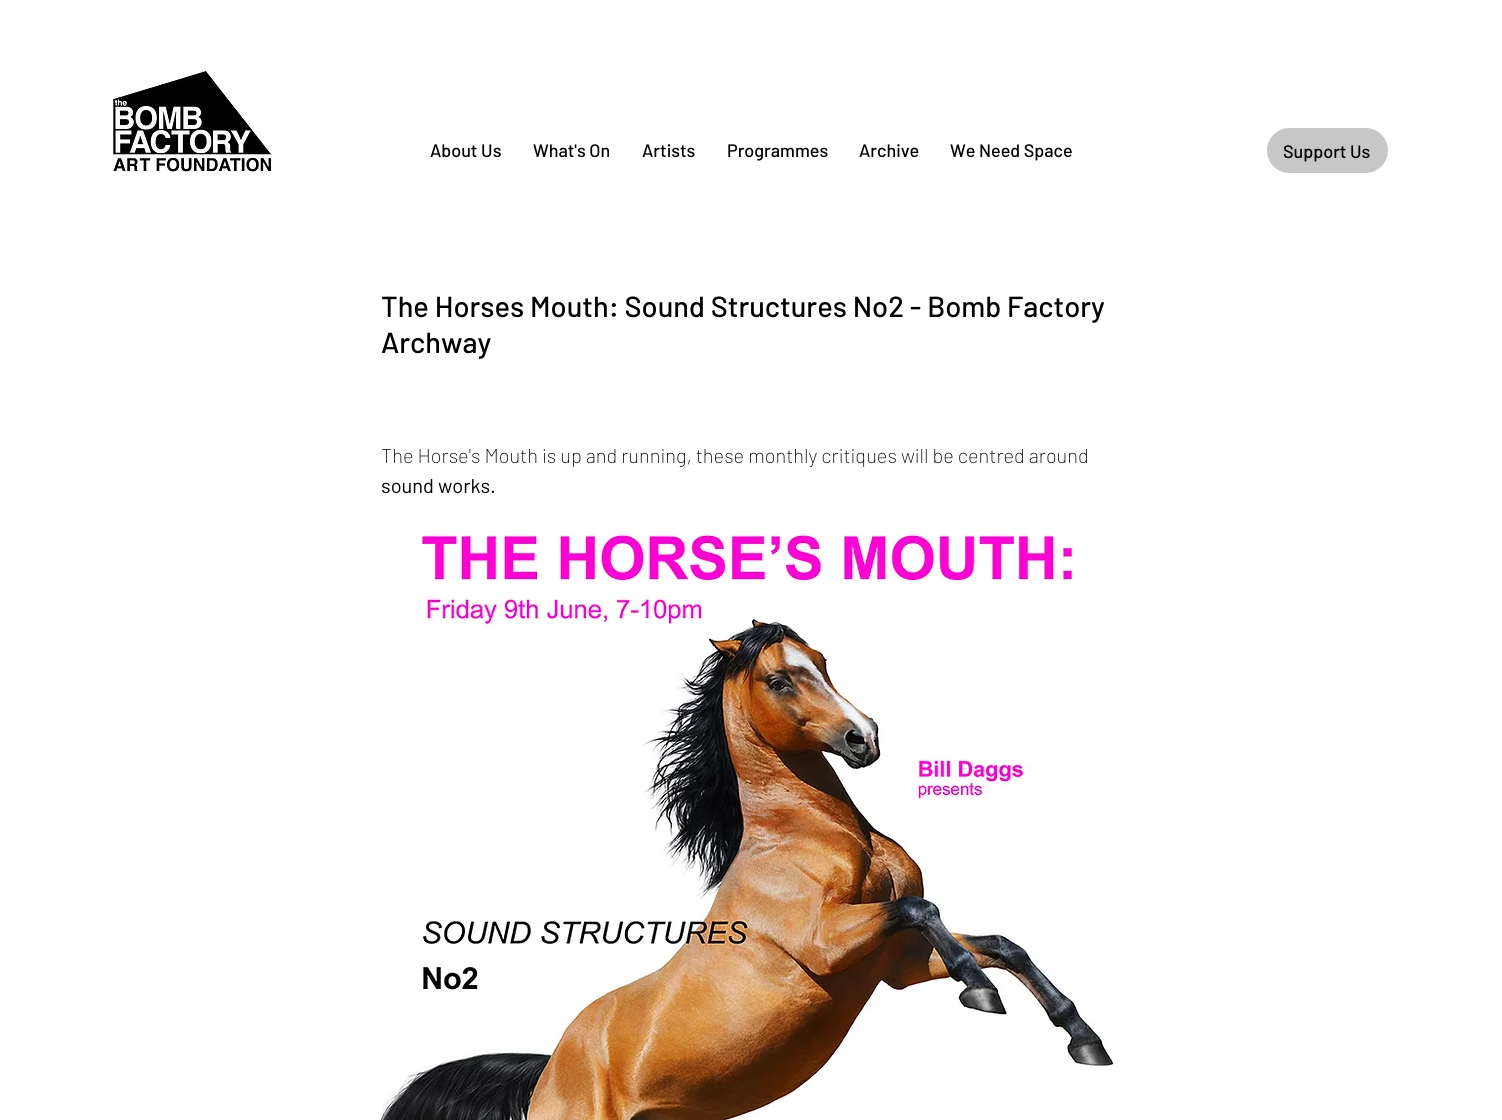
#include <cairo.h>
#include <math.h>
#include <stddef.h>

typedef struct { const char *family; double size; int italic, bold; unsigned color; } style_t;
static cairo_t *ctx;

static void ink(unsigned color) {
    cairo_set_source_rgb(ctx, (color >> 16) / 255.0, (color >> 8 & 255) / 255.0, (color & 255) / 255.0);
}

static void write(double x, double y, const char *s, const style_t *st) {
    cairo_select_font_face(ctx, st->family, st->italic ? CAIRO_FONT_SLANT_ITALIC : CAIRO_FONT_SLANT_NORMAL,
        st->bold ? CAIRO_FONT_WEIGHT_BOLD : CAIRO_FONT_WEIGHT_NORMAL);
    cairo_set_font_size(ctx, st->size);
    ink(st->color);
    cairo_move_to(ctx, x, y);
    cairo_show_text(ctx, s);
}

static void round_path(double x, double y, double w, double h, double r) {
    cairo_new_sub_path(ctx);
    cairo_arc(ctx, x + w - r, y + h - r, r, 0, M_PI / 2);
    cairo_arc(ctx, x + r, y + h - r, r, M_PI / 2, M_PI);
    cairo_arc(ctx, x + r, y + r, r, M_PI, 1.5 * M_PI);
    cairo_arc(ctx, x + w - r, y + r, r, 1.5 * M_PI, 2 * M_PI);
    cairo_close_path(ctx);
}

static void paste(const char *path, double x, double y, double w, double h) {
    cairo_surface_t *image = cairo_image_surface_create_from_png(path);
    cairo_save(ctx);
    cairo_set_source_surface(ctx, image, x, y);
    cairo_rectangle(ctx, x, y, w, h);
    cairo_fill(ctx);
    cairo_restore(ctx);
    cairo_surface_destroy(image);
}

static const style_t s1 = {"Barlow Medium", 18, 0, 0, 0x000000};
static const style_t s2 = {"Barlow Medium", 29, 0, 0, 0x000000};
static const style_t s3 = {"Barlow ExtraLight", 20, 0, 0, 0x000000};
static const style_t s4 = {"Barlow", 20, 0, 0, 0x000000};

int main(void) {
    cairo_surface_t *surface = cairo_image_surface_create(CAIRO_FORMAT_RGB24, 1502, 1120);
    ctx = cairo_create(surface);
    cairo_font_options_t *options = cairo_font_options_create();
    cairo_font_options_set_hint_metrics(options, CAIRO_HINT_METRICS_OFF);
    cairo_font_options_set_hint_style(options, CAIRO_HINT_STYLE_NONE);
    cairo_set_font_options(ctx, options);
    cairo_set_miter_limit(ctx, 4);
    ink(0xffffff);
    cairo_paint(ctx);
    paste("pic1.png", 113, 68, 160, 104);
    write(430, 157, "About Us", &s1);
    write(533, 157, "What's On", &s1);
    write(642, 157, "Artists", &s1);
    write(727, 157, "Programmes", &s1);
    write(859, 157, "Archive", &s1);
    write(950, 157, "We Need Space", &s1);
    ink(0xc7c7c7);
    round_path(1267, 128, 121, 45, 22.5);
    cairo_fill(ctx);
    write(1283, 158, "Support Us", &s1);
    write(381, 317, "The Horses Mouth: Sound Structures No2 - Bomb Factory", &s2);
    write(381, 353, "Archway", &s2);
    write(381, 463, "The Horse's Mouth is up and running, these monthly critiques will be centred around", &s3);
    write(381, 493, "sound works.", &s4);
    paste("pic2.png", 381, 532, 734, 588);
    cairo_surface_write_to_png(surface, "screenshot.png");
    cairo_font_options_destroy(options);
    cairo_destroy(ctx);
    cairo_surface_destroy(surface);
    return 0;
}
